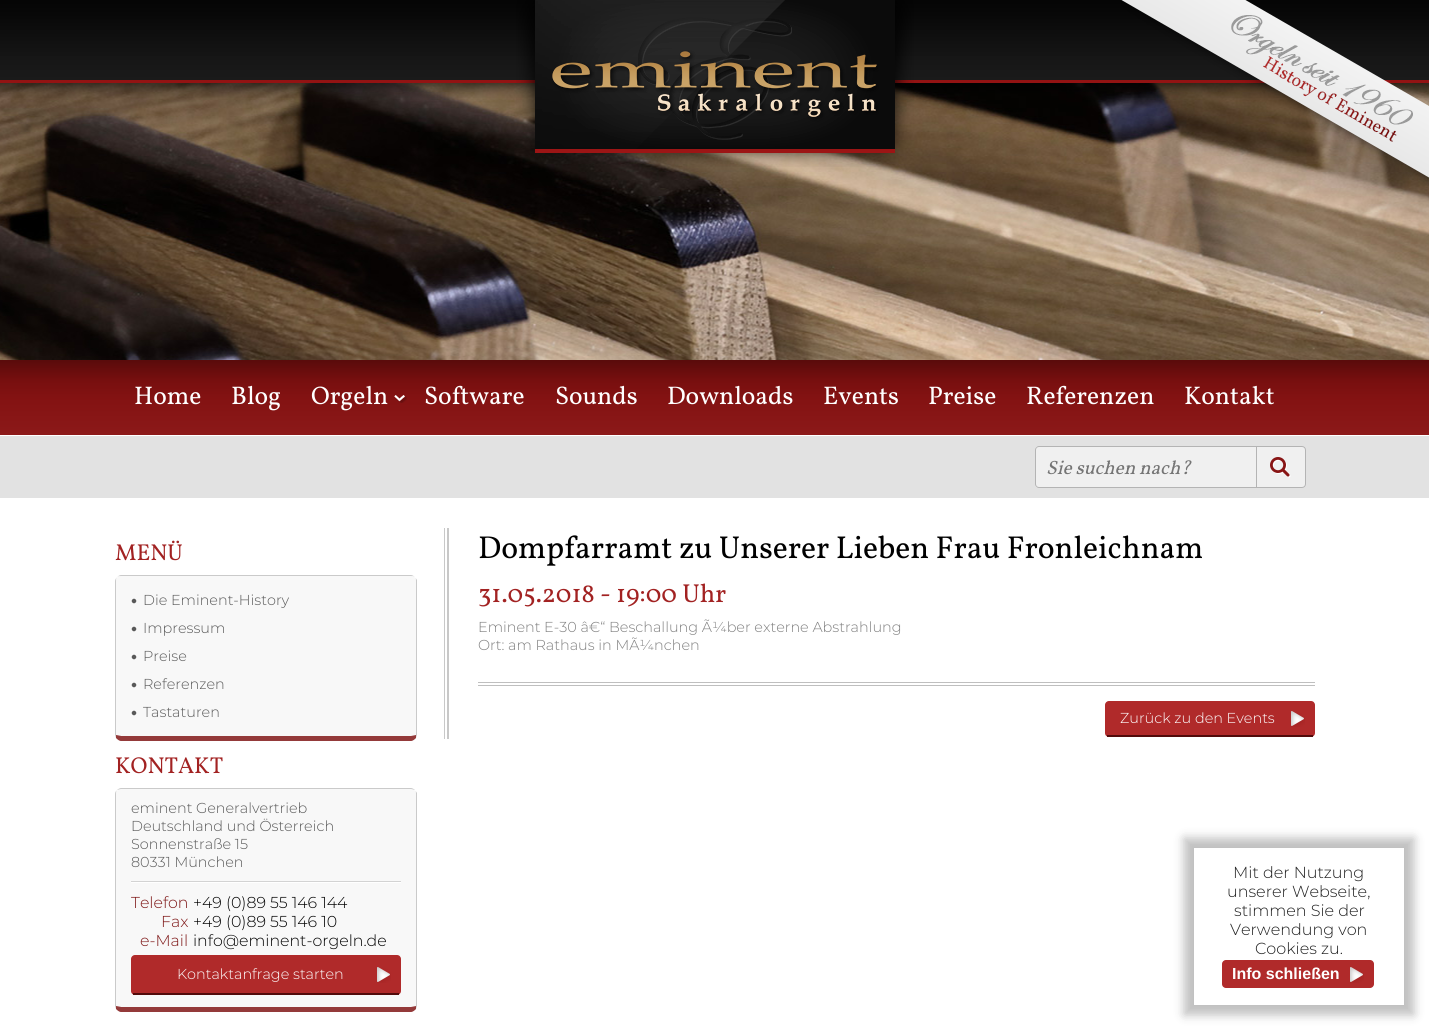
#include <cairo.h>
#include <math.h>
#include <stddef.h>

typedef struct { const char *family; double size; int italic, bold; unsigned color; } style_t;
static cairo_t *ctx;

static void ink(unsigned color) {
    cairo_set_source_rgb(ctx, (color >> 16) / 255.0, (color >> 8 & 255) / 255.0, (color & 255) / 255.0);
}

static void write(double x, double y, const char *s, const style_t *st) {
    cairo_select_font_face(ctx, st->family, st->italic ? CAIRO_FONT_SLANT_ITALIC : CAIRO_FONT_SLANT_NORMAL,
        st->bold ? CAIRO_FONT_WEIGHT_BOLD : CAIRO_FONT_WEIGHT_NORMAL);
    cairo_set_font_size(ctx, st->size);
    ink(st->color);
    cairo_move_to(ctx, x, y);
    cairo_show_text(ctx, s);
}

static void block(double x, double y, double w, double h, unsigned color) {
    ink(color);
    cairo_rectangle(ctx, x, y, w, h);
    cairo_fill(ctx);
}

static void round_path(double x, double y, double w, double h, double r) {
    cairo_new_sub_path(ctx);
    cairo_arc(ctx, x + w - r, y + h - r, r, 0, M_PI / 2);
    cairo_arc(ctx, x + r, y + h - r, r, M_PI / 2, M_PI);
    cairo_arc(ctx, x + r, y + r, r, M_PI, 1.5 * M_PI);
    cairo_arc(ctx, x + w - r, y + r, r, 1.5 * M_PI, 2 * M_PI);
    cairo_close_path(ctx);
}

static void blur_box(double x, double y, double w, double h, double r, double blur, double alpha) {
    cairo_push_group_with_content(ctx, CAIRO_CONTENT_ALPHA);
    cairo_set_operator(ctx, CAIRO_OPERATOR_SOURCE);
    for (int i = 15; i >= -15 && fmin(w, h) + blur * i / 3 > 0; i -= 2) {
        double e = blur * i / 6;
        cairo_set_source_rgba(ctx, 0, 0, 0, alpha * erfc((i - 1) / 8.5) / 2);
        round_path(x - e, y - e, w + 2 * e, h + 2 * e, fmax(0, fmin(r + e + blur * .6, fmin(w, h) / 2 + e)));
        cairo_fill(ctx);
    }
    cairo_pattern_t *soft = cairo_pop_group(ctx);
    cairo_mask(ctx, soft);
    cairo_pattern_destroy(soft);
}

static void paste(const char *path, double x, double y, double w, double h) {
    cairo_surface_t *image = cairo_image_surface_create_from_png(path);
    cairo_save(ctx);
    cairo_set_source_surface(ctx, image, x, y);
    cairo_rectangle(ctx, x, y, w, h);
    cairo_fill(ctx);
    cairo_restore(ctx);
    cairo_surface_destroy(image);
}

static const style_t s1 = {"Vollkorn", 25.5, 0, 0, 0xffffff};
static const style_t s2 = {"Vollkorn", 19.25, 1, 0, 0x757575};
static const style_t s3 = {"Vollkorn", 23, 0, 0, 0xa22222};
static const style_t s4 = {"Montserrat Thin", 14.4, 0, 0, 0x595959};
static const style_t s5 = {"Montserrat Thin", 15.8, 0, 0, 0x7d1515};
static const style_t s6 = {"Montserrat Thin", 15.8, 0, 0, 0x000000};
static const style_t s7 = {"Montserrat Thin", 14.4, 0, 0, 0xffffff};
static const style_t s8 = {"Vollkorn", 31.7, 0, 0, 0x000000};
static const style_t s9 = {"Vollkorn", 26, 0, 0, 0xa22222};
static const style_t s10 = {"Montserrat Thin", 14.4, 0, 0, 0x7f7f7f};
static const style_t s11 = {"Montserrat Thin", 16, 0, 0, 0x1f1f1f};
static const style_t s12 = {"Liberation Sans", 16, 0, 1, 0xffffff};

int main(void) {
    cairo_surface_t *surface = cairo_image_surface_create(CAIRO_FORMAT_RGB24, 1429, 1030);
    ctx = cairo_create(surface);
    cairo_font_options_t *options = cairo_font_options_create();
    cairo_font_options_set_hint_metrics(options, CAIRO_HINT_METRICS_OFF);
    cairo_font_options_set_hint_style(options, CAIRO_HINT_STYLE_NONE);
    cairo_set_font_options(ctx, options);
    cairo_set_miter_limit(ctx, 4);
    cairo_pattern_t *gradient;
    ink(0xffffff);
    cairo_paint(ctx);
    paste("pic4.png", 0, 83, 1429, 277);
    paste("pic2.png", 0, 0, 1429, 98);
    paste("pic1.png", 1121, 0, 308, 186);
    paste("pic3.png", 516, 0, 398, 167);
    gradient = cairo_pattern_create_linear(715, 360, 715, 435);
    cairo_pattern_add_color_stop_rgba(gradient, 0, 0.349, 0.043, 0.043, 1);
    cairo_pattern_add_color_stop_rgba(gradient, 0.28, 0.471, 0.059, 0.059, 1);
    cairo_pattern_add_color_stop_rgba(gradient, 0.5, 0.514, 0.071, 0.071, 1);
    cairo_pattern_add_color_stop_rgba(gradient, 1, 0.549, 0.098, 0.098, 1);
    cairo_set_source(ctx, gradient);
    cairo_pattern_destroy(gradient);
    cairo_rectangle(ctx, 0, 360, 1429, 75);
    cairo_fill(ctx);
    write(134, 404, "Home", &s1);
    write(231, 404, "Blog", &s1);
    paste("pic5.png", 394, 395, 13, 8);
    write(311, 404, "Orgeln", &s1);
    write(424, 404, "Software", &s1);
    write(555, 404, "Sounds", &s1);
    write(667, 404, "Downloads", &s1);
    write(823, 404, "Events", &s1);
    write(928, 404, "Preise", &s1);
    write(1026, 404, "Referenzen", &s1);
    write(1184, 404, "Kontakt", &s1);
    block(0, 436, 1429, 62, 0xe2e2e2);
    ink(0xf0f0f0);
    cairo_new_path(ctx);
    cairo_move_to(ctx, 1039, 447);
    cairo_line_to(ctx, 1256, 447);
    cairo_line_to(ctx, 1256, 487);
    cairo_line_to(ctx, 1039, 487);
    cairo_curve_to(ctx, 1037.5, 487, 1036, 485.5, 1036, 484);
    cairo_line_to(ctx, 1036, 450);
    cairo_curve_to(ctx, 1036, 448.5, 1037.5, 447, 1039, 447);
    cairo_close_path(ctx);
    cairo_fill(ctx);
    ink(0xb4b4b4);
    cairo_set_fill_rule(ctx, CAIRO_FILL_RULE_EVEN_ODD);
    cairo_new_path(ctx);
    cairo_move_to(ctx, 1039, 446);
    cairo_line_to(ctx, 1256, 446);
    cairo_line_to(ctx, 1256, 488);
    cairo_line_to(ctx, 1039, 488);
    cairo_curve_to(ctx, 1037, 488, 1035, 486, 1035, 484);
    cairo_line_to(ctx, 1035, 450);
    cairo_curve_to(ctx, 1035, 448, 1037, 446, 1039, 446);
    cairo_close_path(ctx);
    cairo_move_to(ctx, 1039, 447);
    cairo_line_to(ctx, 1256, 447);
    cairo_line_to(ctx, 1256, 487);
    cairo_line_to(ctx, 1039, 487);
    cairo_curve_to(ctx, 1037, 487, 1036, 486, 1036, 484);
    cairo_line_to(ctx, 1036, 450);
    cairo_curve_to(ctx, 1036, 448, 1037, 447, 1039, 447);
    cairo_close_path(ctx);
    cairo_fill(ctx);
    write(1046, 474, "Sie suchen nach?", &s2);
    ink(0xf0f0f0);
    cairo_new_path(ctx);
    cairo_move_to(ctx, 1256, 446);
    cairo_line_to(ctx, 1302, 446);
    cairo_curve_to(ctx, 1304, 446, 1306, 448, 1306, 450);
    cairo_line_to(ctx, 1306, 484);
    cairo_curve_to(ctx, 1306, 486, 1304, 488, 1302, 488);
    cairo_line_to(ctx, 1256, 488);
    cairo_close_path(ctx);
    cairo_fill(ctx);
    paste("pic6.png", 1270, 457, 21, 21);
    cairo_new_path(ctx);
    cairo_move_to(ctx, 1256.5, 446.5);
    cairo_line_to(ctx, 1302, 446.5);
    cairo_curve_to(ctx, 1304, 446.5, 1305.5, 448, 1305.5, 450);
    cairo_line_to(ctx, 1305.5, 484);
    cairo_curve_to(ctx, 1305.5, 486, 1304, 487.5, 1302, 487.5);
    cairo_line_to(ctx, 1256.5, 487.5);
    cairo_close_path(ctx);
    ink(0xb4b4b4);
    cairo_set_line_width(ctx, 1);
    cairo_stroke(ctx);
    write(115, 560, "MENÜ", &s3);
    ink(0xf8f8f8);
    cairo_set_fill_rule(ctx, CAIRO_FILL_RULE_WINDING);
    cairo_new_path(ctx);
    cairo_move_to(ctx, 121, 576);
    cairo_line_to(ctx, 411, 576);
    cairo_curve_to(ctx, 414, 576, 416, 578, 416, 581);
    cairo_line_to(ctx, 416, 735);
    cairo_curve_to(ctx, 416, 736, 414, 736, 411, 736);
    cairo_line_to(ctx, 121, 736);
    cairo_curve_to(ctx, 118, 736, 116, 736, 116, 735);
    cairo_line_to(ctx, 116, 581);
    cairo_curve_to(ctx, 116, 578, 118, 576, 121, 576);
    cairo_close_path(ctx);
    cairo_fill(ctx);
    ink(0xcacaca);
    cairo_new_path(ctx);
    cairo_move_to(ctx, 121, 575);
    cairo_curve_to(ctx, 120, 575, 118, 576, 117, 577);
    cairo_curve_to(ctx, 118, 576, 120, 576, 121, 576);
    cairo_line_to(ctx, 411, 576);
    cairo_curve_to(ctx, 412, 576, 414, 576, 415, 577);
    cairo_curve_to(ctx, 414, 576, 412, 575, 411, 575);
    cairo_close_path(ctx);
    cairo_fill(ctx);
    cairo_new_path(ctx);
    cairo_move_to(ctx, 417, 735);
    cairo_line_to(ctx, 417, 580);
    cairo_line_to(ctx, 415, 577);
    cairo_curve_to(ctx, 416, 578, 416, 580, 416, 581);
    cairo_line_to(ctx, 416, 735);
    cairo_line_to(ctx, 416, 738);
    cairo_close_path(ctx);
    cairo_fill(ctx);
    ink(0x943a3a);
    cairo_new_path(ctx);
    cairo_move_to(ctx, 121, 741);
    cairo_line_to(ctx, 411, 741);
    cairo_curve_to(ctx, 413, 741, 415, 739, 416, 738);
    cairo_line_to(ctx, 416, 735);
    cairo_line_to(ctx, 411, 736);
    cairo_line_to(ctx, 121, 736);
    cairo_line_to(ctx, 116, 735);
    cairo_line_to(ctx, 116, 738);
    cairo_curve_to(ctx, 117, 739, 119, 741, 121, 741);
    cairo_close_path(ctx);
    cairo_fill(ctx);
    ink(0xcacaca);
    cairo_new_path(ctx);
    cairo_move_to(ctx, 115, 581);
    cairo_line_to(ctx, 115, 735);
    cairo_line_to(ctx, 116, 738);
    cairo_line_to(ctx, 116, 735);
    cairo_line_to(ctx, 116, 581);
    cairo_curve_to(ctx, 116, 580, 116, 578, 117, 577);
    cairo_curve_to(ctx, 116, 578, 115, 580, 115, 581);
    cairo_close_path(ctx);
    cairo_fill(ctx);
    paste("pic7.png", 131, 598, 6, 6);
    write(143, 605, "Die Eminent-History", &s4);
    paste("pic7.png", 131, 626, 6, 6);
    write(143, 633, "Impressum", &s4);
    paste("pic7.png", 131, 654, 6, 6);
    write(143, 661, "Preise", &s4);
    paste("pic7.png", 131, 682, 6, 6);
    write(143, 689, "Referenzen", &s4);
    paste("pic7.png", 131, 710, 6, 6);
    write(143, 717, "Tastaturen", &s4);
    write(115, 773, "KONTAKT", &s3);
    ink(0xf8f8f8);
    cairo_new_path(ctx);
    cairo_move_to(ctx, 121, 789);
    cairo_line_to(ctx, 411, 789);
    cairo_curve_to(ctx, 414, 789, 416, 791, 416, 794);
    cairo_line_to(ctx, 416, 1006);
    cairo_curve_to(ctx, 416, 1007, 414, 1007, 411, 1007);
    cairo_line_to(ctx, 121, 1007);
    cairo_curve_to(ctx, 118, 1007, 116, 1007, 116, 1006);
    cairo_line_to(ctx, 116, 794);
    cairo_curve_to(ctx, 116, 791, 118, 789, 121, 789);
    cairo_close_path(ctx);
    cairo_fill(ctx);
    ink(0xcacaca);
    cairo_new_path(ctx);
    cairo_move_to(ctx, 121, 788);
    cairo_curve_to(ctx, 120, 788, 118, 789, 117, 790);
    cairo_curve_to(ctx, 118, 790, 120, 789, 121, 789);
    cairo_line_to(ctx, 411, 789);
    cairo_curve_to(ctx, 412, 789, 414, 790, 415, 790);
    cairo_curve_to(ctx, 414, 789, 412, 788, 411, 788);
    cairo_close_path(ctx);
    cairo_fill(ctx);
    cairo_new_path(ctx);
    cairo_move_to(ctx, 417, 1006);
    cairo_line_to(ctx, 417, 793);
    cairo_line_to(ctx, 415, 790);
    cairo_curve_to(ctx, 416, 791, 416, 793, 416, 794);
    cairo_line_to(ctx, 416, 1006);
    cairo_line_to(ctx, 416, 1009);
    cairo_close_path(ctx);
    cairo_fill(ctx);
    ink(0x943a3a);
    cairo_new_path(ctx);
    cairo_move_to(ctx, 121, 1012);
    cairo_line_to(ctx, 411, 1012);
    cairo_curve_to(ctx, 413, 1012, 415, 1010, 416, 1009);
    cairo_line_to(ctx, 416, 1006);
    cairo_line_to(ctx, 411, 1007);
    cairo_line_to(ctx, 121, 1007);
    cairo_line_to(ctx, 116, 1006);
    cairo_line_to(ctx, 116, 1009);
    cairo_curve_to(ctx, 117, 1010, 119, 1012, 121, 1012);
    cairo_close_path(ctx);
    cairo_fill(ctx);
    ink(0xcacaca);
    cairo_new_path(ctx);
    cairo_move_to(ctx, 115, 794);
    cairo_line_to(ctx, 115, 1006);
    cairo_line_to(ctx, 116, 1009);
    cairo_line_to(ctx, 116, 1006);
    cairo_line_to(ctx, 116, 794);
    cairo_curve_to(ctx, 116, 793, 116, 791, 117, 790);
    cairo_curve_to(ctx, 116, 791, 115, 792, 115, 794);
    cairo_close_path(ctx);
    cairo_fill(ctx);
    write(131, 813, "eminent Generalvertrieb", &s4);
    write(131, 831, "Deutschland und Österreich", &s4);
    write(131, 849, "Sonnenstraße 15", &s4);
    write(131, 867, "80331 München", &s4);
    block(131, 881, 270, 1, 0xd3d3d3);
    block(131, 882, 270, 1, 0xffffff);
    write(131, 908, "Telefon", &s5);
    write(161, 927, "Fax", &s5);
    write(140, 946, "e-Mail", &s5);
    write(193, 908, "+49 (0)89 55 146 144", &s6);
    write(193, 927, "+49 (0)89 55 146 10", &s6);
    write(193, 946, "info@eminent-orgeln.de", &s6);
    ink(0xb02a2a);
    round_path(131, 955, 270, 40, 4);
    cairo_fill(ctx);
    paste("pic8.png", 377, 967, 14, 16);
    block(133, 993, 266, 2, 0x520b0b);
    write(177, 979, "Kontaktanfrage starten", &s7);
    paste("pic9.png", 444, 528, 5, 211);
    write(478, 558, "Dompfarramt zu Unserer Lieben Frau Fronleichnam", &s8);
    write(478, 602, "31.05.2018 - 19:00 Uhr", &s9);
    write(478, 632, "Eminent E-30 â€“ Beschallung Ã¼ber externe Abstrahlung", &s10);
    write(478, 650, "Ort: am Rathaus in MÃ¼nchen", &s10);
    block(478, 682, 837, 1, 0xbfbfbf);
    block(478, 685, 837, 1, 0xbfbfbf);
    ink(0xb02a2a);
    round_path(1105, 701, 210, 36, 4);
    cairo_fill(ctx);
    paste("pic8.png", 1291, 711, 14, 16);
    block(1107, 735, 206, 2, 0x520b0b);
    write(1120, 723, "Zurück zu den Events", &s7);
    cairo_save(ctx);
    cairo_set_fill_rule(ctx, CAIRO_FILL_RULE_EVEN_ODD);
    cairo_new_path(ctx);
    cairo_move_to(ctx, 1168, 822);
    cairo_line_to(ctx, 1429, 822);
    cairo_line_to(ctx, 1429, 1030);
    cairo_line_to(ctx, 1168, 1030);
    cairo_close_path(ctx);
    cairo_move_to(ctx, 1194, 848);
    cairo_line_to(ctx, 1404, 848);
    cairo_line_to(ctx, 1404, 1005);
    cairo_line_to(ctx, 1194, 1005);
    cairo_close_path(ctx);
    cairo_clip(ctx);
    ink(0x000000);
    blur_box(1184, 838, 230, 177, 0, 5, 0.25);
    cairo_restore(ctx);
    write(1233, 878, "Mit der Nutzung", &s11);
    write(1227, 897, "unserer Webseite,", &s11);
    write(1234, 916, "stimmen Sie der", &s11);
    write(1230, 935, "Verwendung von", &s11);
    write(1255, 954, "Cookies zu.", &s11);
    ink(0xb02a2a);
    round_path(1222, 960, 152, 28, 4);
    cairo_fill(ctx);
    paste("pic8.png", 1350, 967, 14, 16);
    write(1232, 979, "Info schließen", &s12);
    cairo_surface_write_to_png(surface, "screenshot.png");
    cairo_font_options_destroy(options);
    cairo_destroy(ctx);
    cairo_surface_destroy(surface);
    return 0;
}
